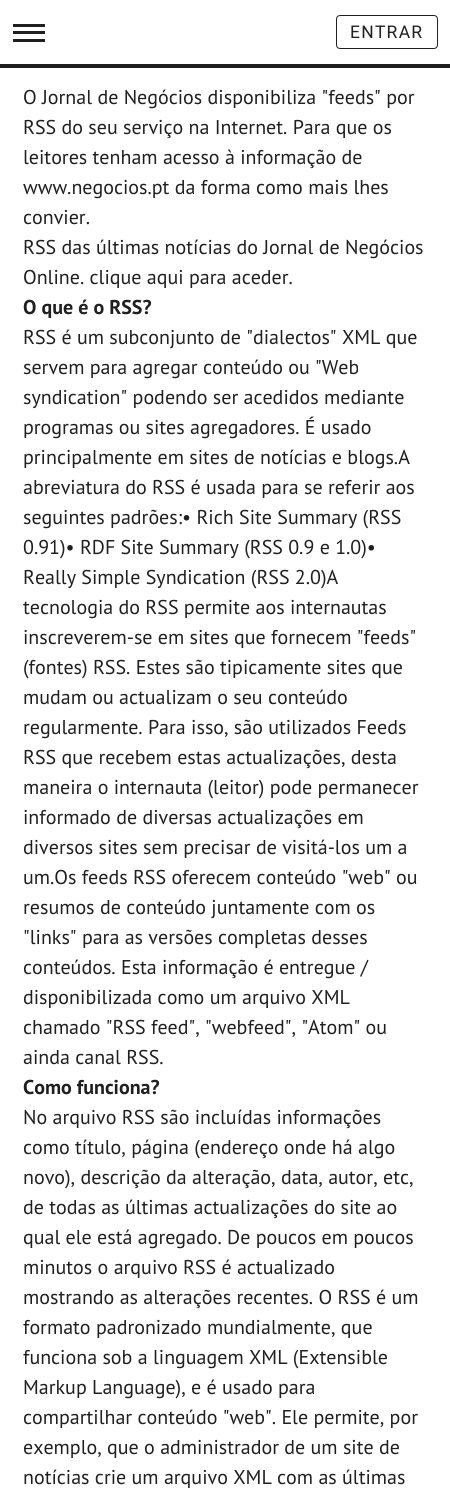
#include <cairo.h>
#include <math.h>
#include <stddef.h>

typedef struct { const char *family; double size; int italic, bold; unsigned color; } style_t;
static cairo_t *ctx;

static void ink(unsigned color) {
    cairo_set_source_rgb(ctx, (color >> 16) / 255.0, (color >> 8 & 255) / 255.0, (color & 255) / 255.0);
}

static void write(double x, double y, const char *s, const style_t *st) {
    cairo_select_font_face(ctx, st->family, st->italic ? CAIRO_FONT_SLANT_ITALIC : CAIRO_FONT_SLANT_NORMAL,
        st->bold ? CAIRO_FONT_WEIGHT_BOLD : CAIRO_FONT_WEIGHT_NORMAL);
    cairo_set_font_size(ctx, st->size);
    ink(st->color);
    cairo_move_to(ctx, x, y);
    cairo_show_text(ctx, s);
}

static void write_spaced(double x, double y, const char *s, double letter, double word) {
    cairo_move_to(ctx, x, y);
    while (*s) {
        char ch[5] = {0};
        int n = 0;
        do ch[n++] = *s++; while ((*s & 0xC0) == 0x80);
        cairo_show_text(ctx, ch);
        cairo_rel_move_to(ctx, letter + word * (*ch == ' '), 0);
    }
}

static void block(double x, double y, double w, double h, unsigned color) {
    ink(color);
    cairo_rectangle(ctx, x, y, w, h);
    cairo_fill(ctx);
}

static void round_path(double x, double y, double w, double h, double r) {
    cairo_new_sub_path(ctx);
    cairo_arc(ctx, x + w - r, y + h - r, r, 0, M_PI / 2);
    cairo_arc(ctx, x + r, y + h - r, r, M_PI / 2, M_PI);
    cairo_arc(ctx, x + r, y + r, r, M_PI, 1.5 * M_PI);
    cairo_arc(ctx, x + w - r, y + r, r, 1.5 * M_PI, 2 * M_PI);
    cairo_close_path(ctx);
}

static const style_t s1 = {"PT Sans", 20, 0, 0, 0x1f1f1f};
static const style_t s2 = {"PT Sans", 20, 0, 1, 0x1f1f1f};

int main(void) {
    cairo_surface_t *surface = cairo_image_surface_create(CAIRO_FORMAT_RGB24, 450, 1496);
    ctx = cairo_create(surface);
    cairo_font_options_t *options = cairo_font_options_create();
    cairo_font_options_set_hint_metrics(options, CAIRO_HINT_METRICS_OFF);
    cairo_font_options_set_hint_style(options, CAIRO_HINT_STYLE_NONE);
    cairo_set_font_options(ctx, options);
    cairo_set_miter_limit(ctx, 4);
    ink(0xffffff);
    cairo_paint(ctx);
    block(0, 64, 450, 4, 0x1f1f1f);
    block(13, 31, 32, 3, 0x1f1f1f);
    block(13, 24, 32, 3, 0x1f1f1f);
    block(13, 39, 32, 3, 0x1f1f1f);
    round_path(336.5, 15.5, 101, 33, 3.5);
    cairo_set_line_width(ctx, 1);
    cairo_stroke(ctx);
    cairo_select_font_face(ctx, "Roboto", CAIRO_FONT_SLANT_NORMAL, CAIRO_FONT_WEIGHT_NORMAL);
    cairo_set_font_size(ctx, 17.5);
    write_spaced(350, 38, "ENTRAR", 1.25, 0);
    write(23, 104, "O Jornal de Negócios disponibiliza \"feeds\" por", &s1);
    write(23, 134, "RSS do seu serviço na Internet. Para que os", &s1);
    write(23, 164, "leitores tenham acesso à informação de", &s1);
    write(23, 194, "www.negocios.pt da forma como mais lhes", &s1);
    write(23, 224, "convier.", &s1);
    write(23, 254, "RSS das últimas notícias do Jornal de Negócios", &s1);
    write(23, 284, "Online. clique aqui para aceder.", &s1);
    write(23, 314, "O que é o RSS?", &s2);
    write(23, 344, "RSS é um subconjunto de \"dialectos\" XML que", &s1);
    write(23, 374, "servem para agregar conteúdo ou \"Web", &s1);
    write(23, 404, "syndication\" podendo ser acedidos mediante", &s1);
    write(23, 434, "programas ou sites agregadores. É usado", &s1);
    write(23, 464, "principalmente em sites de notícias e blogs.A", &s1);
    write(23, 494, "abreviatura do RSS é usada para se referir aos", &s1);
    write(23, 524, "seguintes padrões:• Rich Site Summary (RSS", &s1);
    write(23, 554, "0.91)• RDF Site Summary (RSS 0.9 e 1.0)•", &s1);
    write(23, 584, "Really Simple Syndication (RSS 2.0)A", &s1);
    write(23, 614, "tecnologia do RSS permite aos internautas", &s1);
    write(23, 644, "inscreverem-se em sites que fornecem \"feeds\"", &s1);
    write(23, 674, "(fontes) RSS. Estes são tipicamente sites que", &s1);
    write(23, 704, "mudam ou actualizam o seu conteúdo", &s1);
    write(23, 734, "regularmente. Para isso, são utilizados Feeds", &s1);
    write(23, 764, "RSS que recebem estas actualizações, desta", &s1);
    write(23, 794, "maneira o internauta (leitor) pode permanecer", &s1);
    write(23, 824, "informado de diversas actualizações em", &s1);
    write(23, 854, "diversos sites sem precisar de visitá-los um a", &s1);
    write(23, 884, "um.Os feeds RSS oferecem conteúdo \"web\" ou", &s1);
    write(23, 914, "resumos de conteúdo juntamente com os", &s1);
    write(23, 944, "\"links\" para as versões completas desses", &s1);
    write(23, 974, "conteúdos. Esta informação é entregue /", &s1);
    write(23, 1004, "disponibilizada como um arquivo XML", &s1);
    write(23, 1034, "chamado \"RSS feed\", \"webfeed\", \"Atom\" ou", &s1);
    write(23, 1064, "ainda canal RSS.", &s1);
    write(23, 1094, "Como funciona?", &s2);
    write(23, 1124, "No arquivo RSS são incluídas informações", &s1);
    write(23, 1154, "como título, página (endereço onde há algo", &s1);
    write(23, 1184, "novo), descrição da alteração, data, autor, etc,", &s1);
    write(23, 1214, "de todas as últimas actualizações do site ao", &s1);
    write(23, 1244, "qual ele está agregado. De poucos em poucos", &s1);
    write(23, 1274, "minutos o arquivo RSS é actualizado", &s1);
    write(23, 1304, "mostrando as alterações recentes. O RSS é um", &s1);
    write(23, 1334, "formato padronizado mundialmente, que", &s1);
    write(23, 1364, "funciona sob a linguagem XML (Extensible", &s1);
    write(23, 1394, "Markup Language), e é usado para", &s1);
    write(23, 1424, "compartilhar conteúdo \"web\". Ele permite, por", &s1);
    write(23, 1454, "exemplo, que o administrador de um site de", &s1);
    write(23, 1484, "notícias crie um arquivo XML com as últimas", &s1);
    cairo_surface_write_to_png(surface, "screenshot.png");
    cairo_font_options_destroy(options);
    cairo_destroy(ctx);
    cairo_surface_destroy(surface);
    return 0;
}
